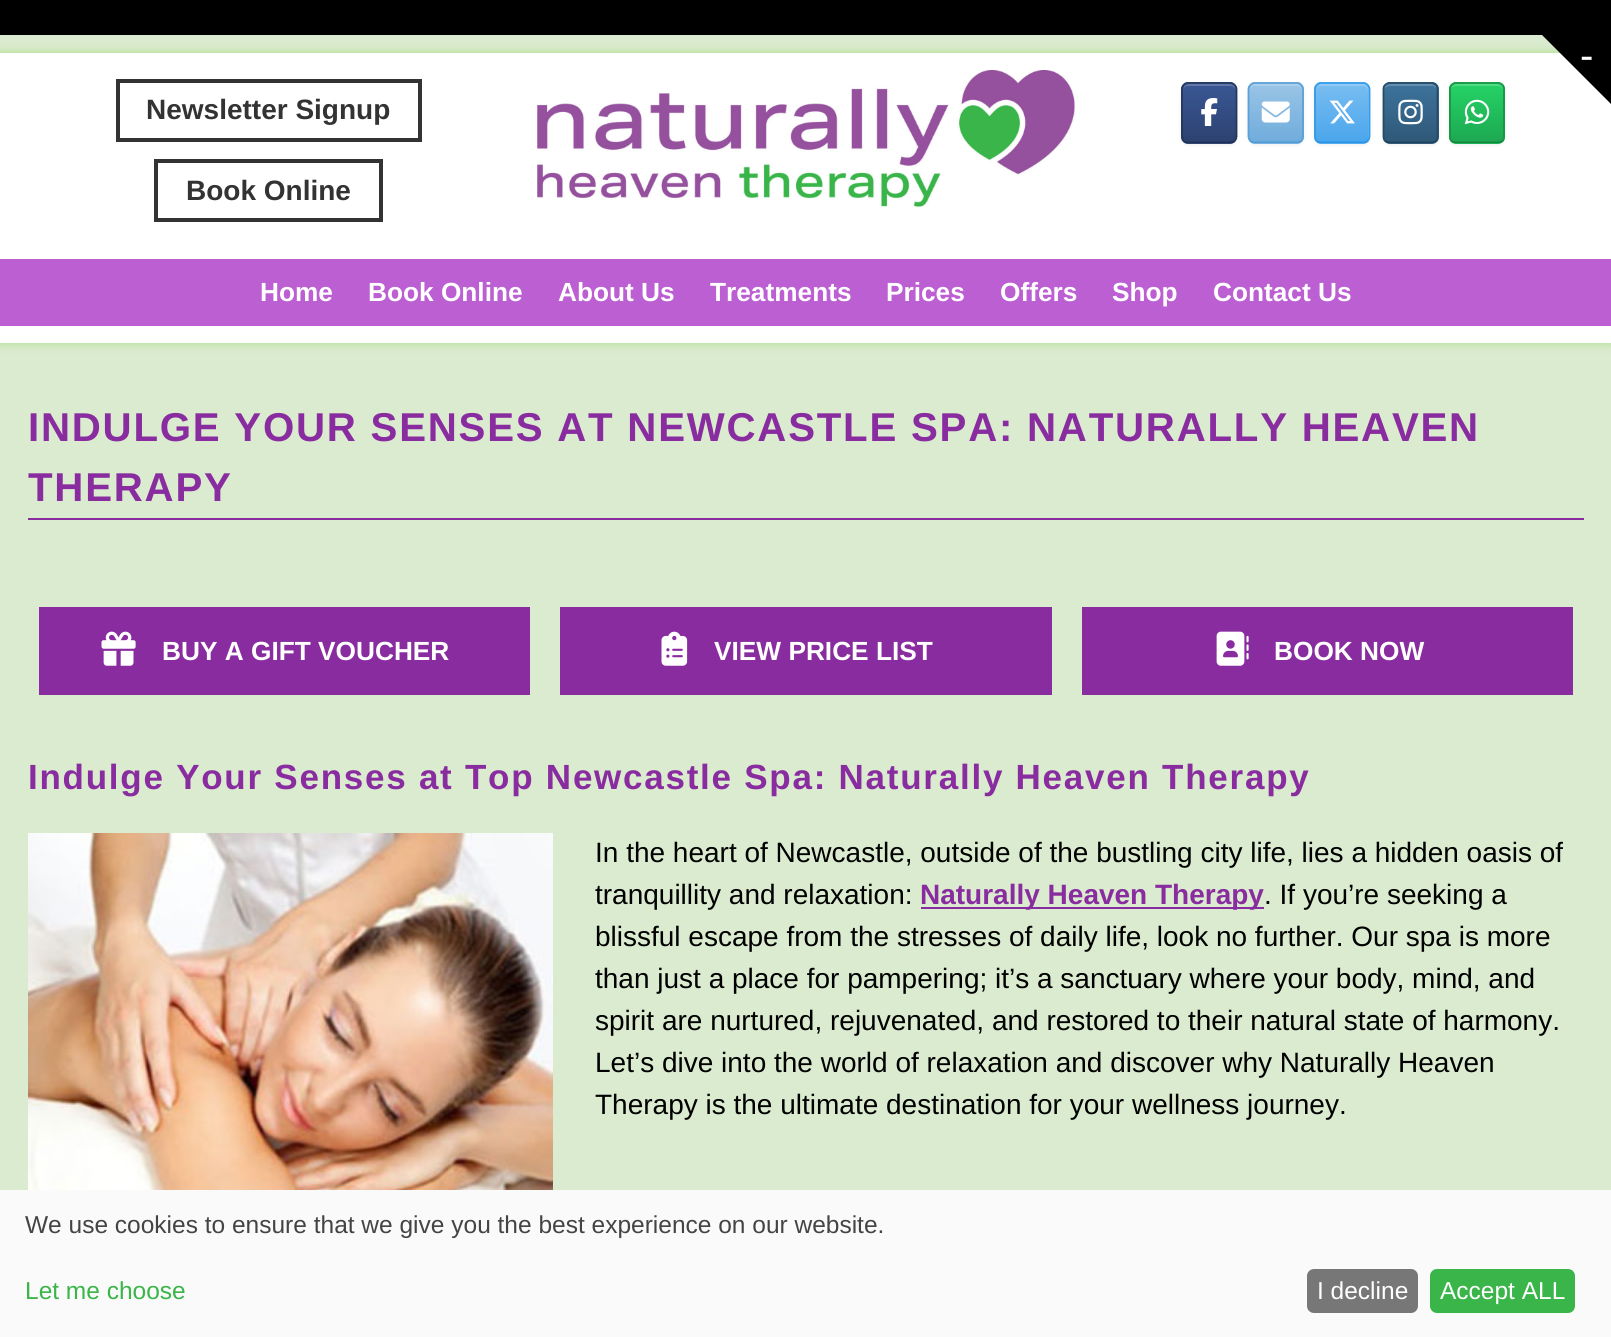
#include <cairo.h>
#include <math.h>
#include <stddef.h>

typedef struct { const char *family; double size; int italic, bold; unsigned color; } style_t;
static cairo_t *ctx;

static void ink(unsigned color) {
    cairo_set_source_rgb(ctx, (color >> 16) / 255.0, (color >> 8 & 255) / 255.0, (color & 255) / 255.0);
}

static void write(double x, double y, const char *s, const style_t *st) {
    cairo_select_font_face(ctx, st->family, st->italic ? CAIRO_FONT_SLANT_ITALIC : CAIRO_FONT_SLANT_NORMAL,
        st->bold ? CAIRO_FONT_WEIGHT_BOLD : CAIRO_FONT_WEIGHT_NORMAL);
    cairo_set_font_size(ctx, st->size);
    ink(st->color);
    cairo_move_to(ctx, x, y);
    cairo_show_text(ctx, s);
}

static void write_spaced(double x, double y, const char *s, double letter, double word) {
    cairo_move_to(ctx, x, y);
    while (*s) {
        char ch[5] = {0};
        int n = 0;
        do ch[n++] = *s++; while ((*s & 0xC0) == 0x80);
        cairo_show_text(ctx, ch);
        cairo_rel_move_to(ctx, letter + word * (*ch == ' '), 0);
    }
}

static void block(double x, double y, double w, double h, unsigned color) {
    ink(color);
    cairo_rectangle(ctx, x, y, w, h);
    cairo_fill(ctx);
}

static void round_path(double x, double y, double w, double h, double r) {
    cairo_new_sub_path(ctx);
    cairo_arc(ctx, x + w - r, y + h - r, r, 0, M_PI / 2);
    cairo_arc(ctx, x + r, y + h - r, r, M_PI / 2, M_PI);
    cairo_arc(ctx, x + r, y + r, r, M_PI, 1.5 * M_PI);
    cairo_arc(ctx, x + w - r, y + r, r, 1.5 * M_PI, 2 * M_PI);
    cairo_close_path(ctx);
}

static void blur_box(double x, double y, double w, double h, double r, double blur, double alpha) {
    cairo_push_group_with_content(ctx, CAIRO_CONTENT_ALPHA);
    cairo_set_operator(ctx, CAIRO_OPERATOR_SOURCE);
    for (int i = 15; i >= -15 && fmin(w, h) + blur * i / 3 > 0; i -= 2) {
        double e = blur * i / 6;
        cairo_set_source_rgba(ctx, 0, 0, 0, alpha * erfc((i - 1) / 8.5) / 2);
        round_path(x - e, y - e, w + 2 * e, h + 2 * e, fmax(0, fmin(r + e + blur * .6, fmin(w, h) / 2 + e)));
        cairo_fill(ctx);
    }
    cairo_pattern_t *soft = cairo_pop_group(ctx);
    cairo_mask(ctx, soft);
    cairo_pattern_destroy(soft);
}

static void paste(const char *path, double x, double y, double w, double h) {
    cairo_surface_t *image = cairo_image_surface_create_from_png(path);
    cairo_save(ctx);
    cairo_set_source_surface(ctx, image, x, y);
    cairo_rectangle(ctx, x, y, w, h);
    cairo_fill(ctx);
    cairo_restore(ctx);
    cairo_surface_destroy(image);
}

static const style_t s1 = {"Liberation Sans", 40.25, 0, 0, 0xffffff};
static const style_t s2 = {"Liberation Sans", 28, 0, 1, 0x333333};
static const style_t s3 = {"Liberation Sans", 26.25, 0, 1, 0xffffff};
static const style_t s4 = {"Liberation Sans", 28, 0, 0, 0x000000};
static const style_t s5 = {"Liberation Sans", 28, 0, 1, 0x892ca0};
static const style_t s6 = {"Liberation Sans", 24.5, 0, 0, 0x444444};
static const style_t s7 = {"Liberation Sans", 24.5, 0, 0, 0x3ab549};
static const style_t s8 = {"Liberation Sans", 24.5, 0, 0, 0xffffff};

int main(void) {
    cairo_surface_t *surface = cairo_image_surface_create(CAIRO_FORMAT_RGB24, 1611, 1337);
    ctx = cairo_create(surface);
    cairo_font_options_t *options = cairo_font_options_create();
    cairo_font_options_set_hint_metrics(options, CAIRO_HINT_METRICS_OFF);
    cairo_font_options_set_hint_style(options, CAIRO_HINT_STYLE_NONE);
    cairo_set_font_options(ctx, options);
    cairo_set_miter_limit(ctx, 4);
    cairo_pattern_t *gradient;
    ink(0xdaebcf);
    cairo_paint(ctx);
    block(0, 0, 1611, 35, 0x000000);
    ink(0xaade87);
    blur_box(0, 53, 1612, 290, 0, 4.5, 1);
    block(0, 53, 1611, 290, 0xffffff);
    ink(0x000000);
    cairo_new_path(ctx);
    cairo_move_to(ctx, 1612, 35);
    cairo_line_to(ctx, 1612, 105);
    cairo_line_to(ctx, 1542, 35);
    cairo_close_path(ctx);
    cairo_fill(ctx);
    write(1580, 69, "-", &s1);
    cairo_rectangle(ctx, 118, 81, 302, 59);
    ink(0x333333);
    cairo_set_line_width(ctx, 4);
    cairo_stroke(ctx);
    write(146, 119, "Newsletter Signup", &s2);
    cairo_rectangle(ctx, 156, 161, 225, 59);
    cairo_stroke(ctx);
    write(186, 200, "Book Online", &s2);
    paste("pic1.png", 537, 70, 538, 137);
    ink(0x000000);
    blur_box(1181, 84, 56, 61, 7, 2, 0.07);
    cairo_save(ctx);
    round_path(1181, 82, 56, 62, 7);
    cairo_clip(ctx);
    gradient = cairo_pattern_create_linear(1183, 84, 1183, 26);
    cairo_pattern_add_color_stop_rgba(gradient, 0, 0.173, 0.259, 0.439, 1);
    cairo_pattern_add_color_stop_rgba(gradient, 1, 0.227, 0.341, 0.584, 1);
    cairo_set_source(ctx, gradient);
    cairo_pattern_destroy(gradient);
    cairo_rectangle(ctx, 1181, 82, 56, 2);
    cairo_fill(ctx);
    gradient = cairo_pattern_create_linear(1183, 142, 1183, 84);
    cairo_pattern_add_color_stop_rgba(gradient, 0, 0.173, 0.259, 0.439, 1);
    cairo_pattern_add_color_stop_rgba(gradient, 1, 0.227, 0.341, 0.584, 1);
    cairo_set_source(ctx, gradient);
    cairo_pattern_destroy(gradient);
    cairo_rectangle(ctx, 1181, 84, 56, 58);
    cairo_fill(ctx);
    gradient = cairo_pattern_create_linear(1183, 200, 1183, 142);
    cairo_pattern_add_color_stop_rgba(gradient, 0, 0.173, 0.259, 0.439, 1);
    cairo_pattern_add_color_stop_rgba(gradient, 1, 0.227, 0.341, 0.584, 1);
    cairo_set_source(ctx, gradient);
    cairo_pattern_destroy(gradient);
    cairo_rectangle(ctx, 1181, 142, 56, 2);
    cairo_fill(ctx);
    cairo_restore(ctx);
    cairo_set_source_rgba(ctx, 1, 1, 1, 0.2);
    cairo_new_path(ctx);
    cairo_move_to(ctx, 1188, 86);
    cairo_line_to(ctx, 1230, 86);
    cairo_curve_to(ctx, 1233, 86, 1236, 88, 1236, 91);
    cairo_curve_to(ctx, 1236, 83, 1231, 84, 1224, 84);
    cairo_line_to(ctx, 1195, 84);
    cairo_curve_to(ctx, 1188, 84, 1183, 83, 1183, 91);
    cairo_curve_to(ctx, 1183, 88, 1185, 86, 1188, 86);
    cairo_close_path(ctx);
    cairo_fill(ctx);
    cairo_new_path(ctx);
    cairo_move_to(ctx, 1184, 85);
    cairo_curve_to(ctx, 1185, 84, 1186.5, 83, 1188, 83);
    cairo_line_to(ctx, 1230, 83);
    cairo_curve_to(ctx, 1232, 83, 1233.5, 84, 1234.5, 85);
    ink(0x273b65);
    cairo_set_line_width(ctx, 1.8);
    cairo_stroke(ctx);
    cairo_new_path(ctx);
    cairo_move_to(ctx, 1234.5, 85);
    cairo_curve_to(ctx, 1235.5, 86, 1236.5, 87.5, 1236.5, 89);
    cairo_line_to(ctx, 1236.5, 136.5);
    cairo_curve_to(ctx, 1236.5, 138, 1235.5, 139.5, 1234.5, 141);
    ink(0x25375e);
    cairo_stroke(ctx);
    cairo_new_path(ctx);
    cairo_move_to(ctx, 1234.5, 141);
    cairo_curve_to(ctx, 1233.5, 142, 1232, 142.5, 1230, 142.5);
    cairo_line_to(ctx, 1188, 142.5);
    cairo_curve_to(ctx, 1186.5, 142.5, 1185, 142, 1184, 141);
    ink(0x203053);
    cairo_stroke(ctx);
    cairo_new_path(ctx);
    cairo_move_to(ctx, 1184, 141);
    cairo_curve_to(ctx, 1183, 139.5, 1182, 138, 1182, 136.5);
    cairo_line_to(ctx, 1182, 89);
    cairo_curve_to(ctx, 1182, 87.5, 1183, 86, 1184, 85);
    ink(0x25375e);
    cairo_stroke(ctx);
    paste("pic2.png", 1201, 98, 17, 28);
    ink(0x000000);
    blur_box(1248, 84, 56, 61, 7, 2, 0.07);
    cairo_save(ctx);
    round_path(1248, 82, 56, 62, 7);
    cairo_clip(ctx);
    gradient = cairo_pattern_create_linear(1250, 84, 1250, 26);
    cairo_pattern_add_color_stop_rgba(gradient, 0, 0.439, 0.675, 0.863, 1);
    cairo_pattern_add_color_stop_rgba(gradient, 1, 0.6, 0.769, 0.902, 1);
    cairo_set_source(ctx, gradient);
    cairo_pattern_destroy(gradient);
    cairo_rectangle(ctx, 1248, 82, 56, 2);
    cairo_fill(ctx);
    gradient = cairo_pattern_create_linear(1250, 142, 1250, 84);
    cairo_pattern_add_color_stop_rgba(gradient, 0, 0.439, 0.675, 0.863, 1);
    cairo_pattern_add_color_stop_rgba(gradient, 1, 0.6, 0.769, 0.902, 1);
    cairo_set_source(ctx, gradient);
    cairo_pattern_destroy(gradient);
    cairo_rectangle(ctx, 1248, 84, 56, 58);
    cairo_fill(ctx);
    gradient = cairo_pattern_create_linear(1250, 200, 1250, 142);
    cairo_pattern_add_color_stop_rgba(gradient, 0, 0.439, 0.675, 0.863, 1);
    cairo_pattern_add_color_stop_rgba(gradient, 1, 0.6, 0.769, 0.902, 1);
    cairo_set_source(ctx, gradient);
    cairo_pattern_destroy(gradient);
    cairo_rectangle(ctx, 1248, 142, 56, 2);
    cairo_fill(ctx);
    cairo_restore(ctx);
    ink(0xadcfeb);
    cairo_new_path(ctx);
    cairo_move_to(ctx, 1255, 86);
    cairo_line_to(ctx, 1297, 86);
    cairo_curve_to(ctx, 1300, 86, 1302, 88, 1302, 91);
    cairo_curve_to(ctx, 1302, 83, 1297, 84, 1290, 84);
    cairo_line_to(ctx, 1262, 84);
    cairo_curve_to(ctx, 1255, 84, 1250, 83, 1250, 91);
    cairo_curve_to(ctx, 1250, 88, 1252, 86, 1255, 86);
    cairo_close_path(ctx);
    cairo_fill(ctx);
    cairo_new_path(ctx);
    cairo_move_to(ctx, 1250.5, 85);
    cairo_curve_to(ctx, 1251.5, 84, 1253, 83, 1255, 83);
    cairo_line_to(ctx, 1297, 83);
    cairo_curve_to(ctx, 1298.5, 83, 1300, 84, 1301, 85);
    ink(0x64a5d9);
    cairo_stroke(ctx);
    cairo_new_path(ctx);
    cairo_move_to(ctx, 1301, 85);
    cairo_curve_to(ctx, 1302, 86, 1303, 87.5, 1303, 89);
    cairo_line_to(ctx, 1303, 136.5);
    cairo_curve_to(ctx, 1303, 138, 1302, 139.5, 1301, 141);
    ink(0x5ca0d7);
    cairo_stroke(ctx);
    cairo_new_path(ctx);
    cairo_move_to(ctx, 1301, 141);
    cairo_curve_to(ctx, 1300, 142, 1298.5, 142.5, 1297, 142.5);
    cairo_line_to(ctx, 1255, 142.5);
    cairo_curve_to(ctx, 1253, 142.5, 1251.5, 142, 1250.5, 141);
    ink(0x4f99d4);
    cairo_stroke(ctx);
    cairo_new_path(ctx);
    cairo_move_to(ctx, 1250.5, 141);
    cairo_curve_to(ctx, 1249.5, 139.5, 1248.5, 138, 1248.5, 136.5);
    cairo_line_to(ctx, 1248.5, 89);
    cairo_curve_to(ctx, 1248.5, 87.5, 1249.5, 86, 1250.5, 85);
    ink(0x5ca0d7);
    cairo_stroke(ctx);
    paste("pic3.png", 1261, 101, 29, 22);
    ink(0x000000);
    blur_box(1314, 84, 56, 61, 7, 2, 0.07);
    cairo_save(ctx);
    round_path(1314, 82, 56, 62, 7);
    cairo_clip(ctx);
    gradient = cairo_pattern_create_linear(1316, 84, 1316, 26);
    cairo_pattern_add_color_stop_rgba(gradient, 0, 0.29, 0.651, 0.925, 1);
    cairo_pattern_add_color_stop_rgba(gradient, 1, 0.471, 0.741, 0.945, 1);
    cairo_set_source(ctx, gradient);
    cairo_pattern_destroy(gradient);
    cairo_rectangle(ctx, 1314, 82, 56, 2);
    cairo_fill(ctx);
    gradient = cairo_pattern_create_linear(1316, 142, 1316, 84);
    cairo_pattern_add_color_stop_rgba(gradient, 0, 0.29, 0.651, 0.925, 1);
    cairo_pattern_add_color_stop_rgba(gradient, 1, 0.471, 0.741, 0.945, 1);
    cairo_set_source(ctx, gradient);
    cairo_pattern_destroy(gradient);
    cairo_rectangle(ctx, 1314, 84, 56, 58);
    cairo_fill(ctx);
    gradient = cairo_pattern_create_linear(1316, 200, 1316, 142);
    cairo_pattern_add_color_stop_rgba(gradient, 0, 0.29, 0.651, 0.925, 1);
    cairo_pattern_add_color_stop_rgba(gradient, 1, 0.471, 0.741, 0.945, 1);
    cairo_set_source(ctx, gradient);
    cairo_pattern_destroy(gradient);
    cairo_rectangle(ctx, 1314, 142, 56, 2);
    cairo_fill(ctx);
    cairo_restore(ctx);
    cairo_set_source_rgba(ctx, 1, 1, 1, 0.2);
    cairo_new_path(ctx);
    cairo_move_to(ctx, 1321, 86);
    cairo_line_to(ctx, 1363, 86);
    cairo_curve_to(ctx, 1366, 86, 1368, 88, 1368, 91);
    cairo_line_to(ctx, 1368, 138);
    cairo_line_to(ctx, 1368, 141);
    cairo_curve_to(ctx, 1368, 140, 1369, 138, 1369, 137);
    cairo_line_to(ctx, 1369, 89);
    cairo_curve_to(ctx, 1369, 86, 1367, 84, 1364, 84);
    cairo_line_to(ctx, 1321, 84);
    cairo_curve_to(ctx, 1318, 84, 1316, 86, 1316, 89);
    cairo_line_to(ctx, 1316, 91);
    cairo_curve_to(ctx, 1316, 88, 1318, 86, 1321, 86);
    cairo_close_path(ctx);
    cairo_fill(ctx);
    cairo_new_path(ctx);
    cairo_move_to(ctx, 1317, 85);
    cairo_curve_to(ctx, 1318, 84, 1319.5, 83, 1321, 83);
    cairo_line_to(ctx, 1363, 83);
    cairo_curve_to(ctx, 1365, 83, 1366.5, 84, 1367.5, 85);
    ink(0x3ca0eb);
    cairo_stroke(ctx);
    cairo_new_path(ctx);
    cairo_move_to(ctx, 1367.5, 85);
    cairo_curve_to(ctx, 1368.5, 86, 1369.5, 87.5, 1369.5, 89);
    cairo_line_to(ctx, 1369.5, 136.5);
    cairo_curve_to(ctx, 1369.5, 138, 1368.5, 139.5, 1367.5, 141);
    ink(0x339bea);
    cairo_stroke(ctx);
    cairo_new_path(ctx);
    cairo_move_to(ctx, 1367.5, 141);
    cairo_curve_to(ctx, 1366.5, 142, 1365, 142.5, 1363, 142.5);
    cairo_line_to(ctx, 1321, 142.5);
    cairo_curve_to(ctx, 1319.5, 142.5, 1318, 142, 1317, 141);
    ink(0x2594e8);
    cairo_stroke(ctx);
    cairo_new_path(ctx);
    cairo_move_to(ctx, 1317, 141);
    cairo_curve_to(ctx, 1316, 139.5, 1315, 138, 1315, 136.5);
    cairo_line_to(ctx, 1315, 89);
    cairo_curve_to(ctx, 1315, 87.5, 1316, 86, 1317, 85);
    ink(0x339bea);
    cairo_stroke(ctx);
    paste("pic4.png", 1329, 100, 26, 24);
    ink(0x000000);
    blur_box(1383, 84, 56, 61, 7, 2, 0.07);
    cairo_save(ctx);
    round_path(1383, 82, 56, 62, 7);
    cairo_clip(ctx);
    gradient = cairo_pattern_create_linear(1384, 84, 1384, 26);
    cairo_pattern_add_color_stop_rgba(gradient, 0, 0.184, 0.345, 0.467, 1);
    cairo_pattern_add_color_stop_rgba(gradient, 1, 0.239, 0.451, 0.612, 1);
    cairo_set_source(ctx, gradient);
    cairo_pattern_destroy(gradient);
    cairo_rectangle(ctx, 1383, 82, 56, 2);
    cairo_fill(ctx);
    gradient = cairo_pattern_create_linear(1384, 142, 1384, 84);
    cairo_pattern_add_color_stop_rgba(gradient, 0, 0.184, 0.345, 0.467, 1);
    cairo_pattern_add_color_stop_rgba(gradient, 1, 0.239, 0.451, 0.612, 1);
    cairo_set_source(ctx, gradient);
    cairo_pattern_destroy(gradient);
    cairo_rectangle(ctx, 1383, 84, 56, 58);
    cairo_fill(ctx);
    gradient = cairo_pattern_create_linear(1384, 200, 1384, 142);
    cairo_pattern_add_color_stop_rgba(gradient, 0, 0.184, 0.345, 0.467, 1);
    cairo_pattern_add_color_stop_rgba(gradient, 1, 0.239, 0.451, 0.612, 1);
    cairo_set_source(ctx, gradient);
    cairo_pattern_destroy(gradient);
    cairo_rectangle(ctx, 1383, 142, 56, 2);
    cairo_fill(ctx);
    cairo_restore(ctx);
    cairo_set_source_rgba(ctx, 1, 1, 1, 0.2);
    cairo_new_path(ctx);
    cairo_move_to(ctx, 1390, 86);
    cairo_line_to(ctx, 1432, 86);
    cairo_curve_to(ctx, 1434, 86, 1437, 88, 1437, 91);
    cairo_curve_to(ctx, 1437, 83, 1432, 84, 1425, 84);
    cairo_line_to(ctx, 1396, 84);
    cairo_curve_to(ctx, 1389, 84, 1384, 83, 1384, 91);
    cairo_curve_to(ctx, 1384, 88, 1387, 86, 1390, 86);
    cairo_close_path(ctx);
    cairo_fill(ctx);
    cairo_new_path(ctx);
    cairo_move_to(ctx, 1385, 85);
    cairo_curve_to(ctx, 1386.5, 84, 1388, 83, 1389.5, 83);
    cairo_line_to(ctx, 1431.5, 83);
    cairo_curve_to(ctx, 1433, 83, 1434.5, 84, 1436, 85);
    ink(0x2a506c);
    cairo_stroke(ctx);
    cairo_new_path(ctx);
    cairo_move_to(ctx, 1436, 85);
    cairo_curve_to(ctx, 1437, 86, 1437.5, 87.5, 1437.5, 89);
    cairo_line_to(ctx, 1437.5, 136.5);
    cairo_curve_to(ctx, 1437.5, 138, 1437, 139.5, 1436, 141);
    ink(0x274a65);
    cairo_stroke(ctx);
    cairo_new_path(ctx);
    cairo_move_to(ctx, 1436, 141);
    cairo_curve_to(ctx, 1434.5, 142, 1433, 142.5, 1431.5, 142.5);
    cairo_line_to(ctx, 1389.5, 142.5);
    cairo_curve_to(ctx, 1388, 142.5, 1386.5, 142, 1385, 141);
    ink(0x23425a);
    cairo_stroke(ctx);
    cairo_new_path(ctx);
    cairo_move_to(ctx, 1385, 141);
    cairo_curve_to(ctx, 1384, 139.5, 1383.5, 138, 1383.5, 136.5);
    cairo_line_to(ctx, 1383.5, 89);
    cairo_curve_to(ctx, 1383.5, 87.5, 1384, 86, 1385, 85);
    ink(0x274a65);
    cairo_stroke(ctx);
    paste("pic5.png", 1398, 99, 25, 26);
    ink(0x000000);
    blur_box(1449, 84, 56, 61, 7, 2, 0.07);
    cairo_save(ctx);
    round_path(1449, 82, 56, 62, 7);
    cairo_clip(ctx);
    gradient = cairo_pattern_create_linear(1451, 84, 1451, 26);
    cairo_pattern_add_color_stop_rgba(gradient, 0, 0.114, 0.659, 0.318, 1);
    cairo_pattern_add_color_stop_rgba(gradient, 1, 0.145, 0.827, 0.4, 1);
    cairo_set_source(ctx, gradient);
    cairo_pattern_destroy(gradient);
    cairo_rectangle(ctx, 1449, 82, 56, 2);
    cairo_fill(ctx);
    gradient = cairo_pattern_create_linear(1451, 142, 1451, 84);
    cairo_pattern_add_color_stop_rgba(gradient, 0, 0.114, 0.659, 0.318, 1);
    cairo_pattern_add_color_stop_rgba(gradient, 1, 0.145, 0.827, 0.4, 1);
    cairo_set_source(ctx, gradient);
    cairo_pattern_destroy(gradient);
    cairo_rectangle(ctx, 1449, 84, 56, 58);
    cairo_fill(ctx);
    gradient = cairo_pattern_create_linear(1451, 200, 1451, 142);
    cairo_pattern_add_color_stop_rgba(gradient, 0, 0.114, 0.659, 0.318, 1);
    cairo_pattern_add_color_stop_rgba(gradient, 1, 0.145, 0.827, 0.4, 1);
    cairo_set_source(ctx, gradient);
    cairo_pattern_destroy(gradient);
    cairo_rectangle(ctx, 1449, 142, 56, 2);
    cairo_fill(ctx);
    cairo_restore(ctx);
    cairo_set_source_rgba(ctx, 1, 1, 1, 0.2);
    cairo_new_path(ctx);
    cairo_move_to(ctx, 1456, 86);
    cairo_line_to(ctx, 1498, 86);
    cairo_curve_to(ctx, 1501, 86, 1503, 88, 1503, 91);
    cairo_curve_to(ctx, 1503, 83, 1498, 84, 1491, 84);
    cairo_line_to(ctx, 1463, 84);
    cairo_curve_to(ctx, 1456, 84, 1451, 83, 1451, 91);
    cairo_curve_to(ctx, 1451, 88, 1453, 86, 1456, 86);
    cairo_close_path(ctx);
    cairo_fill(ctx);
    cairo_new_path(ctx);
    cairo_move_to(ctx, 1451.5, 85);
    cairo_curve_to(ctx, 1453, 84, 1454.5, 83, 1456, 83);
    cairo_line_to(ctx, 1498, 83);
    cairo_curve_to(ctx, 1499.5, 83, 1501, 84, 1502.5, 85);
    ink(0x1b9b4b);
    cairo_stroke(ctx);
    cairo_new_path(ctx);
    cairo_move_to(ctx, 1502.5, 85);
    cairo_curve_to(ctx, 1503.5, 86, 1504, 87.5, 1504, 89);
    cairo_line_to(ctx, 1504, 136.5);
    cairo_curve_to(ctx, 1504, 138, 1503.5, 139.5, 1502.5, 141);
    ink(0x1a9247);
    cairo_stroke(ctx);
    cairo_new_path(ctx);
    cairo_move_to(ctx, 1502.5, 141);
    cairo_curve_to(ctx, 1501, 142, 1499.5, 142.5, 1498, 142.5);
    cairo_line_to(ctx, 1456, 142.5);
    cairo_curve_to(ctx, 1454.5, 142.5, 1453, 142, 1451.5, 141);
    ink(0x178540);
    cairo_stroke(ctx);
    cairo_new_path(ctx);
    cairo_move_to(ctx, 1451.5, 141);
    cairo_curve_to(ctx, 1450.5, 139.5, 1450, 138, 1450, 136.5);
    cairo_line_to(ctx, 1450, 89);
    cairo_curve_to(ctx, 1450, 87.5, 1450.5, 86, 1451.5, 85);
    ink(0x1a9247);
    cairo_stroke(ctx);
    paste("pic6.png", 1464, 99, 26, 26);
    block(0, 259, 1611, 67, 0xbc5fd3);
    write(260, 301, "Home", &s3);
    write(368, 301, "Book Online", &s3);
    write(558, 301, "About Us", &s3);
    write(710, 301, "Treatments", &s3);
    write(886, 301, "Prices", &s3);
    write(1000, 301, "Offers", &s3);
    write(1112, 301, "Shop", &s3);
    write(1213, 301, "Contact Us", &s3);
    block(28, 518, 1556, 2, 0x892ca0);
    cairo_set_font_size(ctx, 40.25);
    write_spaced(28, 441, "INDULGE YOUR SENSES AT NEWCASTLE SPA: NATURALLY HEAVEN", 1.75, 0);
    write_spaced(28, 501, "THERAPY", 1.75, 0);
    block(39, 607, 491, 88, 0x892ca0);
    paste("pic7.png", 101, 631, 35, 35);
    write(162, 660, "BUY A GIFT VOUCHER", &s3);
    block(560, 607, 492, 88, 0x892ca0);
    paste("pic8.png", 661, 631, 27, 35);
    write(714, 660, "VIEW PRICE LIST", &s3);
    block(1082, 607, 491, 88, 0x892ca0);
    paste("pic9.png", 1216, 631, 33, 35);
    write(1274, 660, "BOOK NOW", &s3);
    cairo_set_font_size(ctx, 35);
    ink(0x892ca0);
    write_spaced(28, 789, "Indulge Your Senses at Top Newcastle Spa: Naturally Heaven Therapy", 1.75, 0);
    paste("pic10.png", 28, 833, 525, 357);
    write(595, 862, "In the heart of Newcastle, outside of the bustling city life, lies a hidden oasis of", &s4);
    write(595, 904, "tranquillity and relaxation:", &s4);
    block(921, 907, 343, 2, 0x892ca0);
    write(920, 904, "Naturally Heaven Therapy", &s5);
    write(1264, 904, ". If you’re seeking a", &s4);
    write(595, 946, "blissful escape from the stresses of daily life, look no further. Our spa is more", &s4);
    write(595, 988, "than just a place for pampering; it’s a sanctuary where your body, mind, and", &s4);
    write(595, 1030, "spirit are nurtured, rejuvenated, and restored to their natural state of harmony.", &s4);
    write(595, 1072, "Let’s dive into the world of relaxation and discover why Naturally Heaven", &s4);
    write(595, 1114, "Therapy is the ultimate destination for your wellness journey.", &s4);
    block(0, 1190, 1611, 147, 0xfafafa);
    write(25, 1233, "We use cookies to ensure that we give you the best experience on our website.", &s6);
    write(25, 1299, "Let me choose", &s7);
    ink(0x777777);
    round_path(1307, 1269, 111, 44, 7);
    cairo_fill(ctx);
    write(1317, 1299, "I decline", &s8);
    ink(0x3ab549);
    round_path(1430, 1269, 145, 44, 7);
    cairo_fill(ctx);
    write(1440, 1299, "Accept ALL", &s8);
    cairo_surface_write_to_png(surface, "screenshot.png");
    cairo_font_options_destroy(options);
    cairo_destroy(ctx);
    cairo_surface_destroy(surface);
    return 0;
}
